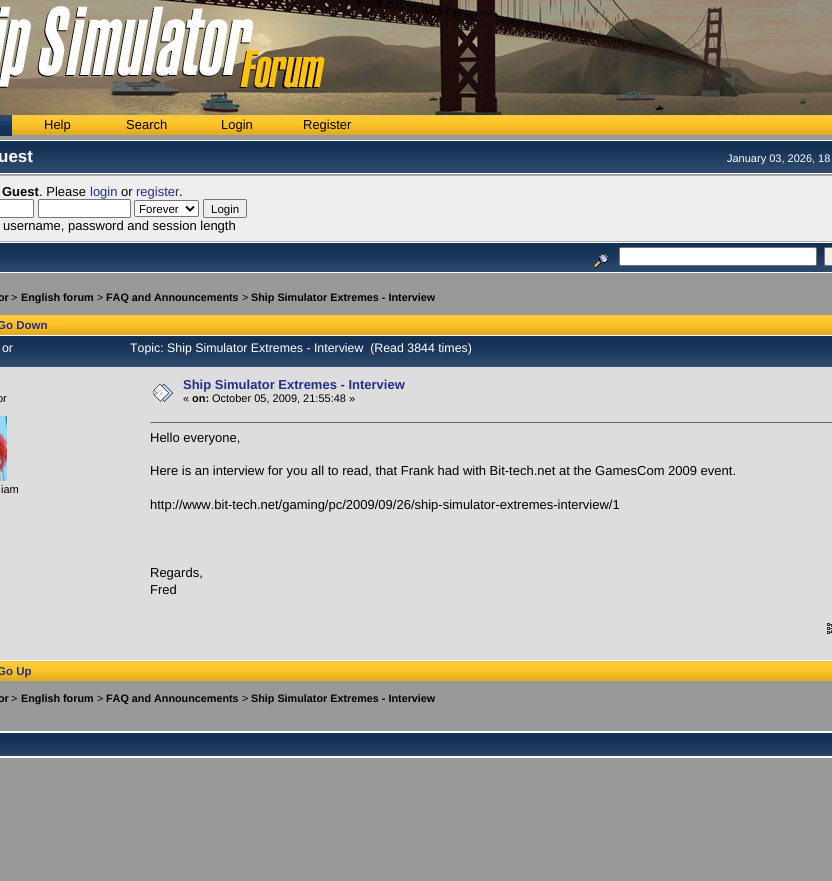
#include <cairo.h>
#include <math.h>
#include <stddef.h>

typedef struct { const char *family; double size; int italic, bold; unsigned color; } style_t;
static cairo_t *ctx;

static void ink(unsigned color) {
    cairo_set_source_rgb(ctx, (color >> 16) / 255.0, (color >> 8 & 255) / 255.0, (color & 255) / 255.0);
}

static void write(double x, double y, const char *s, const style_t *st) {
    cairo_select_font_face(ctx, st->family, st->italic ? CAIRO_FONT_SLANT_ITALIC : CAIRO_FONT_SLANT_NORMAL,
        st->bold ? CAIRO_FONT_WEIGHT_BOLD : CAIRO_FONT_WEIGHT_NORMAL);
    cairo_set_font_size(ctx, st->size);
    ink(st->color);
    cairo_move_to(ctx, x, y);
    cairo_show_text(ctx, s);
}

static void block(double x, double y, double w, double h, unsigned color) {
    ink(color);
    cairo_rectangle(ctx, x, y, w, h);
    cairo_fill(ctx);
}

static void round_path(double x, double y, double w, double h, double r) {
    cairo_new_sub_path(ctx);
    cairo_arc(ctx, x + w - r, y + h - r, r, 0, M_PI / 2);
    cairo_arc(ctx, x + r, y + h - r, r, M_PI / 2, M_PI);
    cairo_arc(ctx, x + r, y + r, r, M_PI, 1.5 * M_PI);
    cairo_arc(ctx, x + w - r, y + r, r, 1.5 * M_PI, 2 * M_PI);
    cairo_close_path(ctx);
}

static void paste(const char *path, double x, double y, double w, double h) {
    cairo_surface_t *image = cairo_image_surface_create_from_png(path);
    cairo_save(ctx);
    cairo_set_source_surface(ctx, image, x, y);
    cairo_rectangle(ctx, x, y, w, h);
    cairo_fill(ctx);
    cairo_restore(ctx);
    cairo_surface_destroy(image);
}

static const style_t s1 = {"Liberation Sans", 13, 0, 0, 0x000000};
static const style_t s2 = {"Liberation Sans", 17, 0, 1, 0xffffff};
static const style_t s3 = {"Liberation Sans", 11, 0, 0, 0xffffff};
static const style_t s4 = {"Liberation Sans", 13, 0, 1, 0x000000};
static const style_t s5 = {"Liberation Sans", 13, 0, 0, 0x232d8d};
static const style_t s6 = {"Liberation Sans", 11.5, 0, 0, 0x000000};
static const style_t s7 = {"Liberation Sans", 10.8, 0, 1, 0x000000};
static const style_t s8 = {"Liberation Sans", 10.8, 0, 0, 0x000000};
static const style_t s9 = {"Liberation Sans", 11.5, 0, 1, 0x232d8d};
static const style_t s10 = {"Liberation Sans", 12.35, 0, 0, 0xffffff};
static const style_t s11 = {"Liberation Sans", 11, 0, 0, 0x000000};
static const style_t s12 = {"Liberation Sans", 13, 0, 1, 0x232d8d};
static const style_t s13 = {"Liberation Sans", 11, 0, 1, 0x000000};

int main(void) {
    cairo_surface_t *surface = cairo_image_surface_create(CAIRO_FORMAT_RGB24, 832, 881);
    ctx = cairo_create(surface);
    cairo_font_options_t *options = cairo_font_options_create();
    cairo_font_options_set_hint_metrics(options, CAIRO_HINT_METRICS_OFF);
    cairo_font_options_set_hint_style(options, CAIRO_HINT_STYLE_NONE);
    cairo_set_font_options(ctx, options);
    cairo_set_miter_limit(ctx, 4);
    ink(0x999999);
    cairo_paint(ctx);
    paste("pic1.png", 0, 0, 832, 115);
    paste("pic2.png", 12, 115, 820, 20);
    paste("pic3.png", 0, 115, 12, 21);
    write(44, 129, "Help", &s1);
    write(126, 129, "Search", &s1);
    write(221, 129, "Login", &s1);
    write(303, 129, "Register", &s1);
    paste("pic4.png", 0, 141, 296, 32);
    block(0, 140, 832, 1, 0xffffff);
    block(0, 173, 832, 1, 0xffffff);
    write(-2, 162, "uest", &s2);
    paste("pic5.png", 296, 141, 536, 32);
    write(727, 162, "January 03, 2026, 18", &s3);
    block(0, 175, 832, 67, 0xadadad);
    block(0, 176, 832, 65, 0xeeeeee);
    write(2, 196, "Guest", &s4);
    write(39, 196, ". Please", &s1);
    write(90, 196, "login", &s5);
    write(121, 196, "or", &s1);
    write(136, 196, "register", &s5);
    write(179, 196, ".", &s1);
    ink(0xffffff);
    round_path(-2.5, 199.5, 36, 18, 1.5);
    cairo_fill_preserve(ctx);
    ink(0x767676);
    cairo_set_line_width(ctx, 1);
    cairo_stroke(ctx);
    ink(0xffffff);
    round_path(38.5, 199.5, 92, 18, 1.5);
    cairo_fill_preserve(ctx);
    ink(0x767676);
    cairo_stroke(ctx);
    ink(0xffffff);
    round_path(134.5, 200.5, 64, 16, 1.5);
    cairo_fill_preserve(ctx);
    ink(0x767676);
    cairo_stroke(ctx);
    cairo_new_path(ctx);
    cairo_move_to(ctx, 186, 206.5);
    cairo_line_to(ctx, 190, 210.5);
    cairo_line_to(ctx, 194, 206.5);
    ink(0x000000);
    cairo_set_line_width(ctx, 2);
    cairo_stroke(ctx);
    write(139, 213, "Forever", &s6);
    round_path(203.5, 199.5, 43, 18, 1.5);
    ink(0x767676);
    cairo_set_line_width(ctx, 1);
    cairo_stroke(ctx);
    write(211, 213, "Login", &s6);
    write(3, 230, "username, password and session length", &s1);
    paste("pic6.png", 0, 243, 832, 29);
    block(0, 242, 832, 1, 0xffffff);
    block(0, 272, 832, 1, 0xffffff);
    paste("pic7.png", 594, 254, 14, 14);
    round_path(619.5, 247.5, 197, 18, 1.5);
    cairo_fill_preserve(ctx);
    ink(0x767676);
    cairo_stroke(ctx);
    ink(0xefefef);
    round_path(824.5, 247.5, 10, 18, 1.5);
    cairo_fill_preserve(ctx);
    ink(0x767676);
    cairo_stroke(ctx);
    write(-2, 301, "or", &s7);
    write(11, 301, ">", &s8);
    write(21, 301, "English forum", &s7);
    write(97, 301, ">", &s8);
    write(106, 301, "FAQ and Announcements", &s7);
    write(242, 301, ">", &s8);
    write(251, 301, "Ship Simulator Extremes - Interview", &s7);
    paste("pic8.png", 0, 315, 832, 20);
    write(-3, 329, "Go Down", &s9);
    block(0, 335, 832, 326, 0xffffff);
    paste("pic9.png", 0, 336, 832, 30);
    block(0, 366, 832, 1, 0x375576);
    write(2, 352, "or", &s10);
    write(130, 352, "Topic: Ship Simulator Extremes - Interview  (Read 3844 times)", &s10);
    block(0, 367, 832, 293, 0xdddddd);
    write(-3, 402, "or", &s11);
    paste("pic10.png", 0, 416, 7, 65);
    write(1, 493, "iam", &s11);
    paste("pic11.png", 153, 384, 20, 18);
    write(183, 389, "Ship Simulator Extremes - Interview", &s12);
    write(183, 402, "«", &s11);
    write(192, 402, "on:", &s13);
    write(212, 402, "October 05, 2009, 21:55:48 »", &s11);
    block(150, 422, 682, 1, 0x666666);
    write(150, 442, "Hello everyone,", &s1);
    write(150, 475, "Here is an interview for you all to read, that Frank had with Bit-tech.net at the GamesCom 2009 event.", &s1);
    write(150, 509, "http://www.bit-tech.net/gaming/pc/2009/09/26/ship-simulator-extremes-interview/1", &s1);
    write(150, 577, "Regards,", &s1);
    write(150, 594, "Fred", &s1);
    paste("pic12.png", 827, 623, 5, 11);
    paste("pic8.png", 0, 661, 832, 20);
    write(-3, 675, "Go Up", &s9);
    write(-2, 702, "or", &s7);
    write(11, 702, ">", &s8);
    write(21, 702, "English forum", &s7);
    write(97, 702, ">", &s8);
    write(106, 702, "FAQ and Announcements", &s7);
    write(242, 702, ">", &s8);
    write(251, 702, "Ship Simulator Extremes - Interview", &s7);
    block(0, 731, 832, 27, 0xffffff);
    paste("pic13.png", 0, 733, 832, 23);
    cairo_surface_write_to_png(surface, "screenshot.png");
    cairo_font_options_destroy(options);
    cairo_destroy(ctx);
    cairo_surface_destroy(surface);
    return 0;
}
